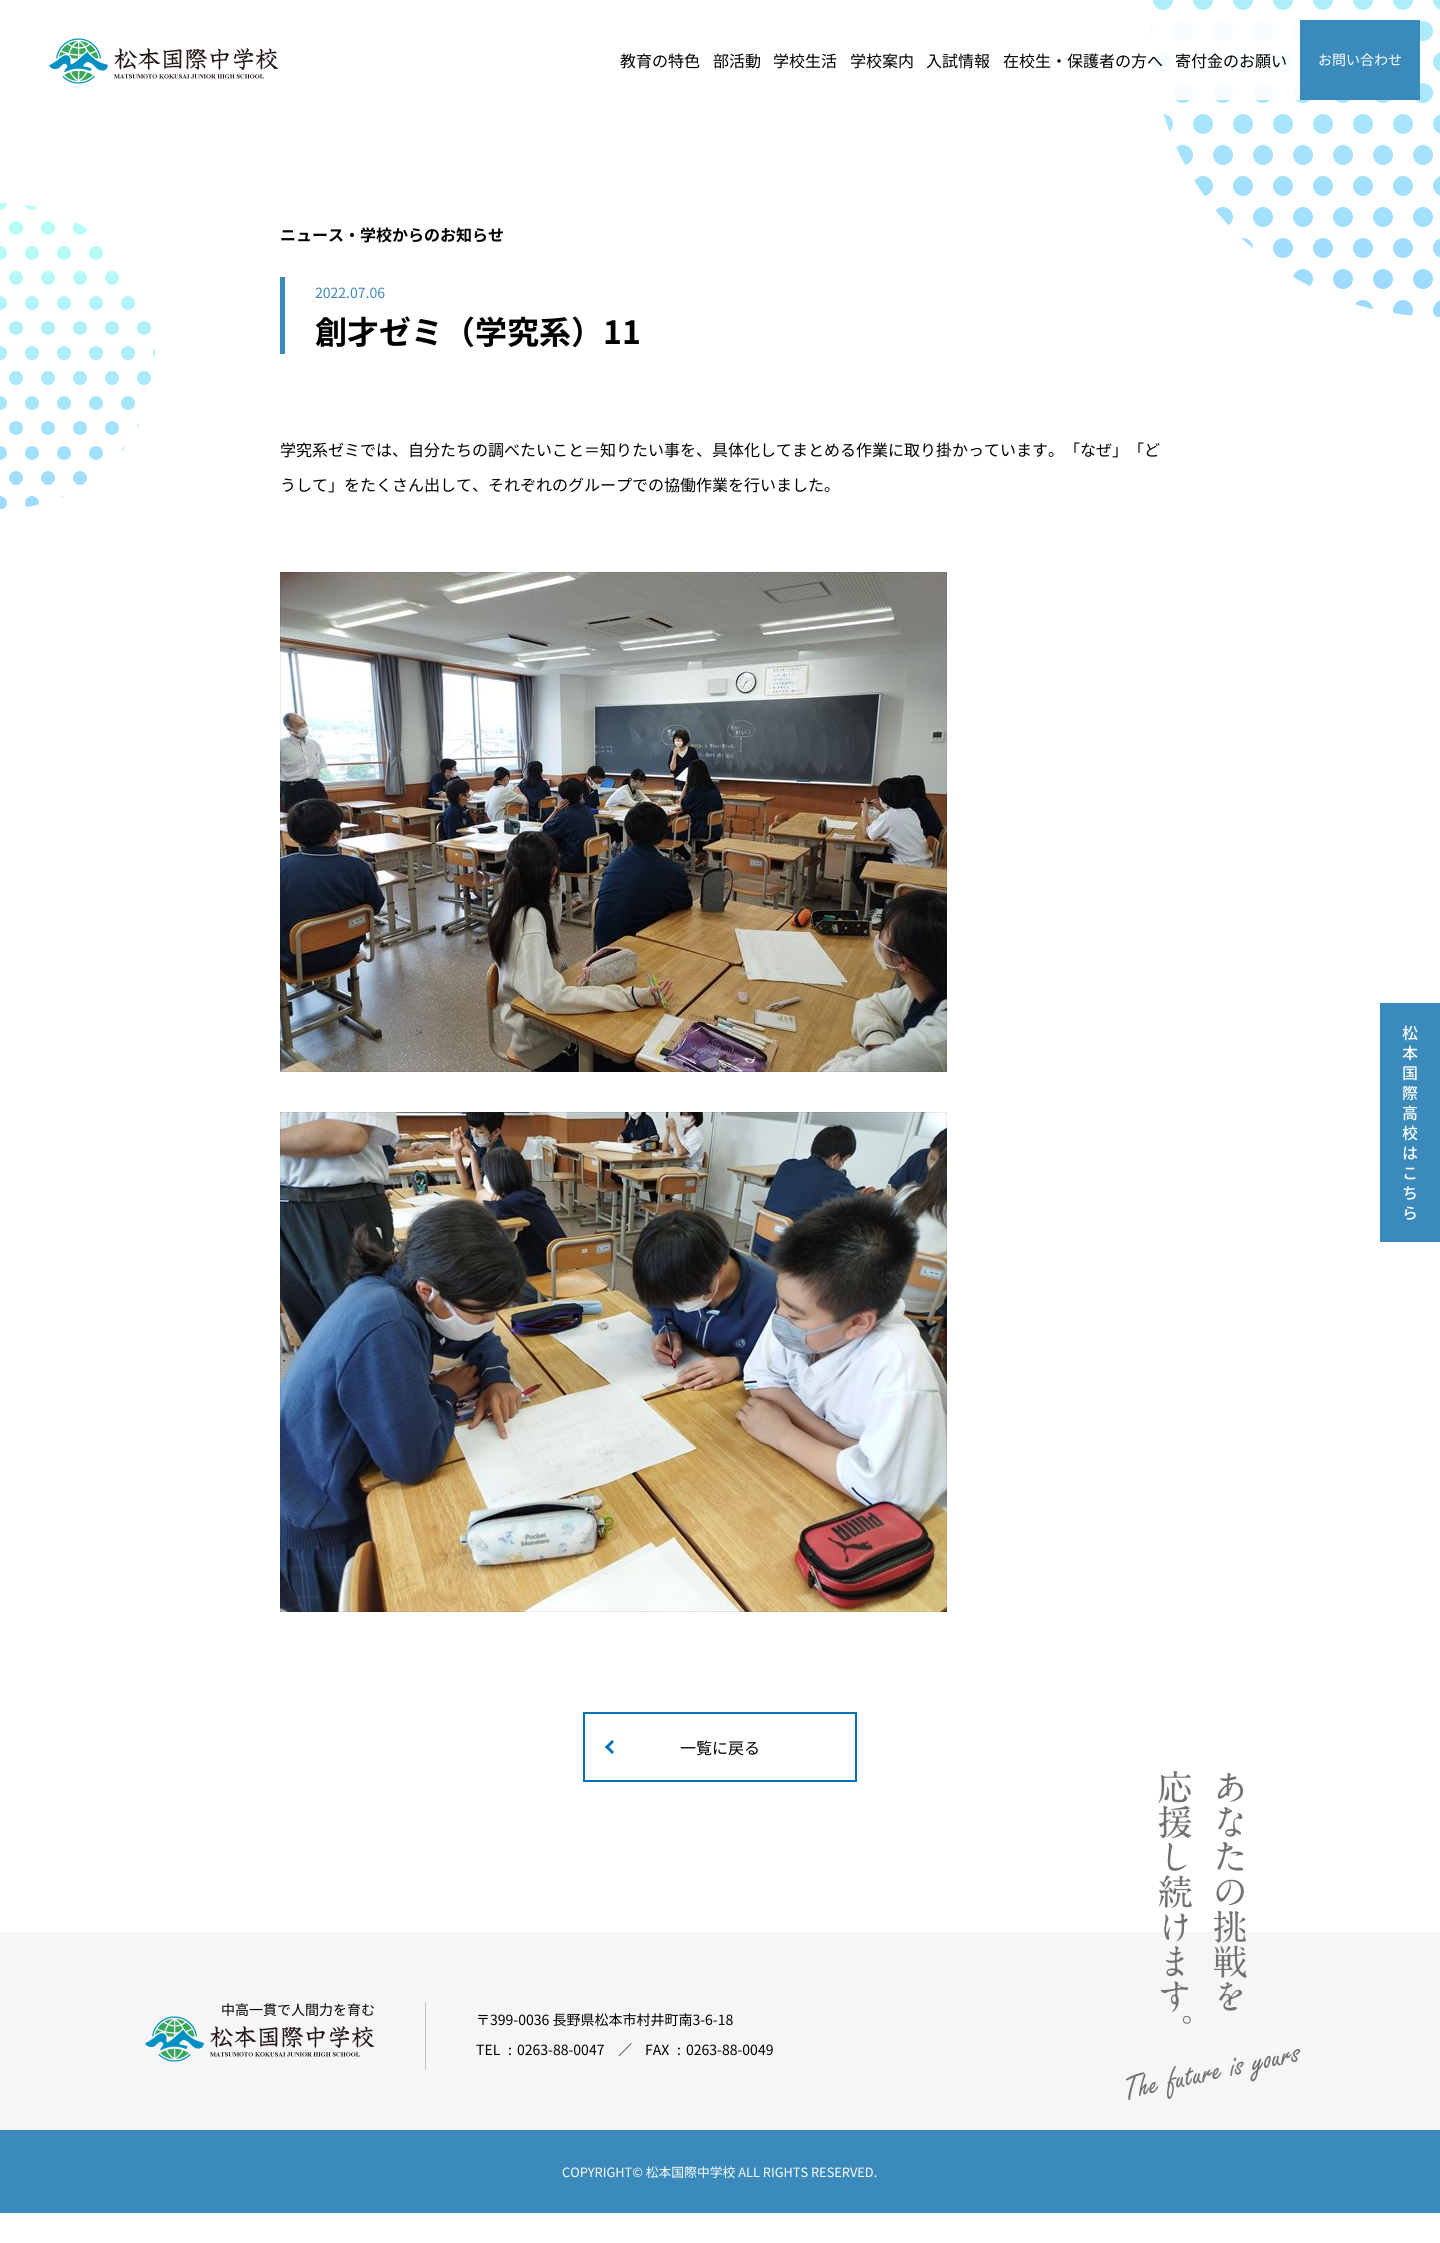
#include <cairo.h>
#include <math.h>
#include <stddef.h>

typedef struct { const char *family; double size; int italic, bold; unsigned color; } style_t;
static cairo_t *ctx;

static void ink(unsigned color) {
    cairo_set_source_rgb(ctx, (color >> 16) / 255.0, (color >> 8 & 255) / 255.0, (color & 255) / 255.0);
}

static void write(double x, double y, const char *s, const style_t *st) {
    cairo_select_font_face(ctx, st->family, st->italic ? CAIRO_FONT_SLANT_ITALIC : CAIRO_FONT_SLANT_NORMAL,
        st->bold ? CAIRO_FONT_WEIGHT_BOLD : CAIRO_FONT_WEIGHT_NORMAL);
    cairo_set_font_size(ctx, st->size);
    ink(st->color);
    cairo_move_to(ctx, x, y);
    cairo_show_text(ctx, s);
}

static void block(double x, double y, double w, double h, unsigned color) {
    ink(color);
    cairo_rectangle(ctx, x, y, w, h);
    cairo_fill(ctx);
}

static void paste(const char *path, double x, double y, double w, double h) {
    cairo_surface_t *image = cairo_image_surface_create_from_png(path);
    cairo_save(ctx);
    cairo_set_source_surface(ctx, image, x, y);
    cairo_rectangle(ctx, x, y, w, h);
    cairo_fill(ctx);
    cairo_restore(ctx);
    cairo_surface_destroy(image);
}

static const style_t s1 = {"Noto Sans JP", 16, 0, 0, 0x000000};
static const style_t s2 = {"Noto Sans JP", 14, 0, 0, 0xffffff};
static const style_t s3 = {"Noto Sans JP", 16, 0, 1, 0x000000};
static const style_t s4 = {"Noto Sans JP", 14, 0, 0, 0x3b8abc};
static const style_t s5 = {"Noto Sans JP", 32, 0, 1, 0x000000};
static const style_t s6 = {"Noto Sans JP", 14, 0, 0, 0x000000};
static const style_t s7 = {"Noto Sans JP", 12.8, 0, 0, 0xffffff};

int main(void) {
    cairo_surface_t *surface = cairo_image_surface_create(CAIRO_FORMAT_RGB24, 1440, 2243);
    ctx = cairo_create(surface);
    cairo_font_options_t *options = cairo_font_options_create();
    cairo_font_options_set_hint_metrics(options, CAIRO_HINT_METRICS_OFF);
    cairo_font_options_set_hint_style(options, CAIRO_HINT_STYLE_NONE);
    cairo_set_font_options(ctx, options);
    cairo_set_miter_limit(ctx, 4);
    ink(0xffffff);
    cairo_paint(ctx);
    paste("pic2.png", 0, 0, 1440, 509);
    cairo_set_source_rgba(ctx, 1, 1, 1, 0.9);
    cairo_rectangle(ctx, 1150, 21, 150, 79);
    cairo_fill(ctx);
    paste("pic1.png", 49, 38, 230, 46);
    write(620, 67, "教育の特色", &s1);
    write(713, 67, "部活動", &s1);
    write(773, 67, "学校生活", &s1);
    write(850, 67, "学校案内", &s1);
    write(926, 67, "入試情報", &s1);
    write(1003, 67, "在校生・保護者の方へ", &s1);
    write(1175, 67, "寄付金のお願い", &s1);
    block(1300, 20, 120, 80, 0x3b8abc);
    write(1318, 65, "お問い合わせ", &s2);
    write(280, 241, "ニュース・学校からのお知らせ", &s3);
    block(280, 277, 5, 77, 0x3b8abc);
    write(315, 298, "2022.07.06", &s4);
    write(315, 344, "創才ゼミ（学究系）11", &s5);
    write(280, 456, "学究系ゼミでは、自分たちの調べたいこと＝知りたい事を、具体化してまとめる作業に取り掛かっています。「なぜ」「ど", &s1);
    write(280, 491, "うして」をたくさん出して、それぞれのグループでの協働作業を行いました。", &s1);
    paste("pic3.png", 280, 572, 667, 500);
    paste("pic4.png", 280, 1112, 667, 500);
    cairo_rectangle(ctx, 584, 1713, 272, 68);
    ink(0x0071b7);
    cairo_stroke(ctx);
    cairo_new_path(ctx);
    cairo_move_to(ctx, 612, 1754);
    cairo_line_to(ctx, 605, 1747);
    cairo_line_to(ctx, 607, 1745);
    cairo_line_to(ctx, 614, 1752);
    cairo_close_path(ctx);
    cairo_fill(ctx);
    cairo_new_path(ctx);
    cairo_move_to(ctx, 607, 1749);
    cairo_line_to(ctx, 605, 1747);
    cairo_line_to(ctx, 612, 1740);
    cairo_line_to(ctx, 614, 1742);
    cairo_close_path(ctx);
    cairo_fill(ctx);
    write(680, 1754, "一覧に戻る", &s1);
    paste("pic5.png", 1380, 1003, 60, 239);
    block(0, 1932, 1440, 198, 0xf6f6f8);
    block(425, 2002, 1, 68, 0xbfbfbf);
    write(221, 2015, "中高一貫で人間力を育む", &s6);
    paste("pic6.png", 145, 2016, 230, 46);
    paste("pic7.png", 1126, 1771, 174, 329);
    write(476, 2025, "〒399-0036 長野県松本市村井町南3-6-18", &s6);
    write(476, 2055, "TEL", &s6);
    write(508, 2055, ":", &s6);
    write(517, 2055, "0263-88-0047", &s6);
    write(618, 2055, "／", &s6);
    write(645, 2055, "FAX", &s6);
    write(677, 2055, ":", &s6);
    write(686, 2055, "0263-88-0049", &s6);
    block(0, 2130, 1440, 83, 0x3b8abc);
    write(562, 2177, "COPYRIGHT© 松本国際中学校 ALL RIGHTS RESERVED.", &s7);
    cairo_surface_write_to_png(surface, "screenshot.png");
    cairo_font_options_destroy(options);
    cairo_destroy(ctx);
    cairo_surface_destroy(surface);
    return 0;
}
